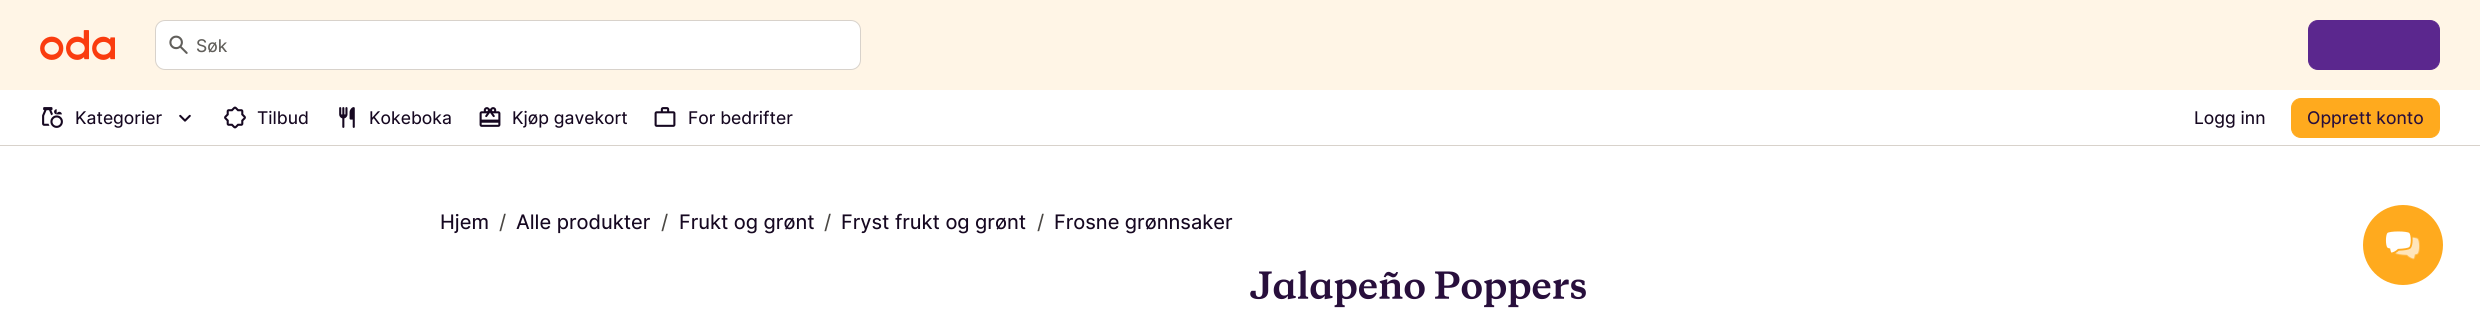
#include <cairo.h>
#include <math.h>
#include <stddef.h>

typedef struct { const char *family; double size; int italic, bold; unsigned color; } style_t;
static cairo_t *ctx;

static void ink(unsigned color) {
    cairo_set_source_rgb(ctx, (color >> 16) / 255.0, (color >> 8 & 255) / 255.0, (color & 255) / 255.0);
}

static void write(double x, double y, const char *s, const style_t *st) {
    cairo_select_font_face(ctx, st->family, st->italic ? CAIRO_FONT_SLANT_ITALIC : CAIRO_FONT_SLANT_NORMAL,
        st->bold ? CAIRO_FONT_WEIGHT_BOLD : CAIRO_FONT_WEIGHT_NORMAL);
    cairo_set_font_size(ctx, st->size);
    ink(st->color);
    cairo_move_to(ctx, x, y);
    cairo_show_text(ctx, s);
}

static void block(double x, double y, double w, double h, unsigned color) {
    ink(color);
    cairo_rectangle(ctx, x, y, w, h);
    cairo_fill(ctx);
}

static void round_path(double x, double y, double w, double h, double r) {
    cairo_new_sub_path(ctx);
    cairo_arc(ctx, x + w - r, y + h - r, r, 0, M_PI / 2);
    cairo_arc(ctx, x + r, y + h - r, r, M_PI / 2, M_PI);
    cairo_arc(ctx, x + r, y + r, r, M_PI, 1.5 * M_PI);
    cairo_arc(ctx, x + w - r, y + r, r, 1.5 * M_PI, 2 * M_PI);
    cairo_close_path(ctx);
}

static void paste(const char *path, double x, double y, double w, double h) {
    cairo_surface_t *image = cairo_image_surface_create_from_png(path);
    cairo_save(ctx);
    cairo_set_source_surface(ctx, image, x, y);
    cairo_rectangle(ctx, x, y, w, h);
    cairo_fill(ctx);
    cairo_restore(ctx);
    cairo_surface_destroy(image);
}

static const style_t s1 = {"Inter", 17.5, 0, 0, 0x615f5b};
static const style_t s2 = {"Inter", 17.5, 0, 0, 0x160821};
static const style_t s3 = {"Inter", 17.5, 0, 0, 0x280f3c};
static const style_t s4 = {"Inter", 20, 0, 0, 0x160821};
static const style_t s5 = {"Inter", 20, 0, 0, 0x4b4844};

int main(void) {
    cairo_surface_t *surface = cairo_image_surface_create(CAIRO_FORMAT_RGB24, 2480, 322);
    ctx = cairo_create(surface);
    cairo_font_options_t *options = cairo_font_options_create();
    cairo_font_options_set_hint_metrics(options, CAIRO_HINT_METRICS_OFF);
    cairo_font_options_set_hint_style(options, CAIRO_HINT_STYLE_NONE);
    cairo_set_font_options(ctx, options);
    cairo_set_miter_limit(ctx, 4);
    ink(0xfff5e6);
    cairo_paint(ctx);
    paste("pic1.png", 40, 30, 75, 30);
    ink(0xffffff);
    round_path(155.5, 20.5, 705, 49, 9.5);
    cairo_fill_preserve(ctx);
    ink(0xd8d2cb);
    cairo_set_line_width(ctx, 1);
    cairo_stroke(ctx);
    paste("pic2.png", 169, 35, 19, 19);
    write(196, 52, "Søk", &s1);
    ink(0x5b278e);
    round_path(2308.5, 20.5, 131, 49, 9.5);
    cairo_fill_preserve(ctx);
    cairo_stroke(ctx);
    block(0, 90, 2480, 55, 0xffffff);
    block(0, 145, 2480, 1, 0xd8d2cb);
    paste("pic3.png", 42, 107, 21, 21);
    write(75, 124, "Kategorier", &s2);
    paste("pic4.png", 179, 114, 12, 8);
    paste("pic5.png", 224, 106, 22, 23);
    write(257, 124, "Tilbud", &s2);
    paste("pic6.png", 339, 107, 16, 21);
    write(369, 124, "Kokeboka", &s2);
    paste("pic7.png", 479, 107, 22, 20);
    write(512, 124, "Kjøp gavekort", &s2);
    paste("pic8.png", 654, 107, 22, 20);
    write(688, 124, "For bedrifter", &s2);
    write(2194, 124, "Logg inn", &s2);
    ink(0xffaa1e);
    round_path(2291.5, 98.5, 148, 39, 9.5);
    cairo_fill_preserve(ctx);
    cairo_stroke(ctx);
    write(2307, 124, "Opprett konto", &s3);
    block(0, 146, 2480, 176, 0xffffff);
    write(440, 229, "Hjem", &s4);
    write(499, 229, "/", &s5);
    write(516, 229, "Alle produkter", &s4);
    write(661, 229, "/", &s5);
    write(679, 229, "Frukt og grønt", &s4);
    write(824, 229, "/", &s5);
    write(841, 229, "Fryst frukt og grønt", &s4);
    write(1037, 229, "/", &s5);
    write(1054, 229, "Frosne grønnsaker", &s4);
    paste("pic9.png", 1250, 270, 336, 38);
    ink(0xffaa1e);
    cairo_arc(ctx, 2403, 245, 40, 0, 2 * M_PI);
    cairo_fill(ctx);
    paste("pic10.png", 2385, 231, 35, 29);
    cairo_surface_write_to_png(surface, "screenshot.png");
    cairo_font_options_destroy(options);
    cairo_destroy(ctx);
    cairo_surface_destroy(surface);
    return 0;
}
